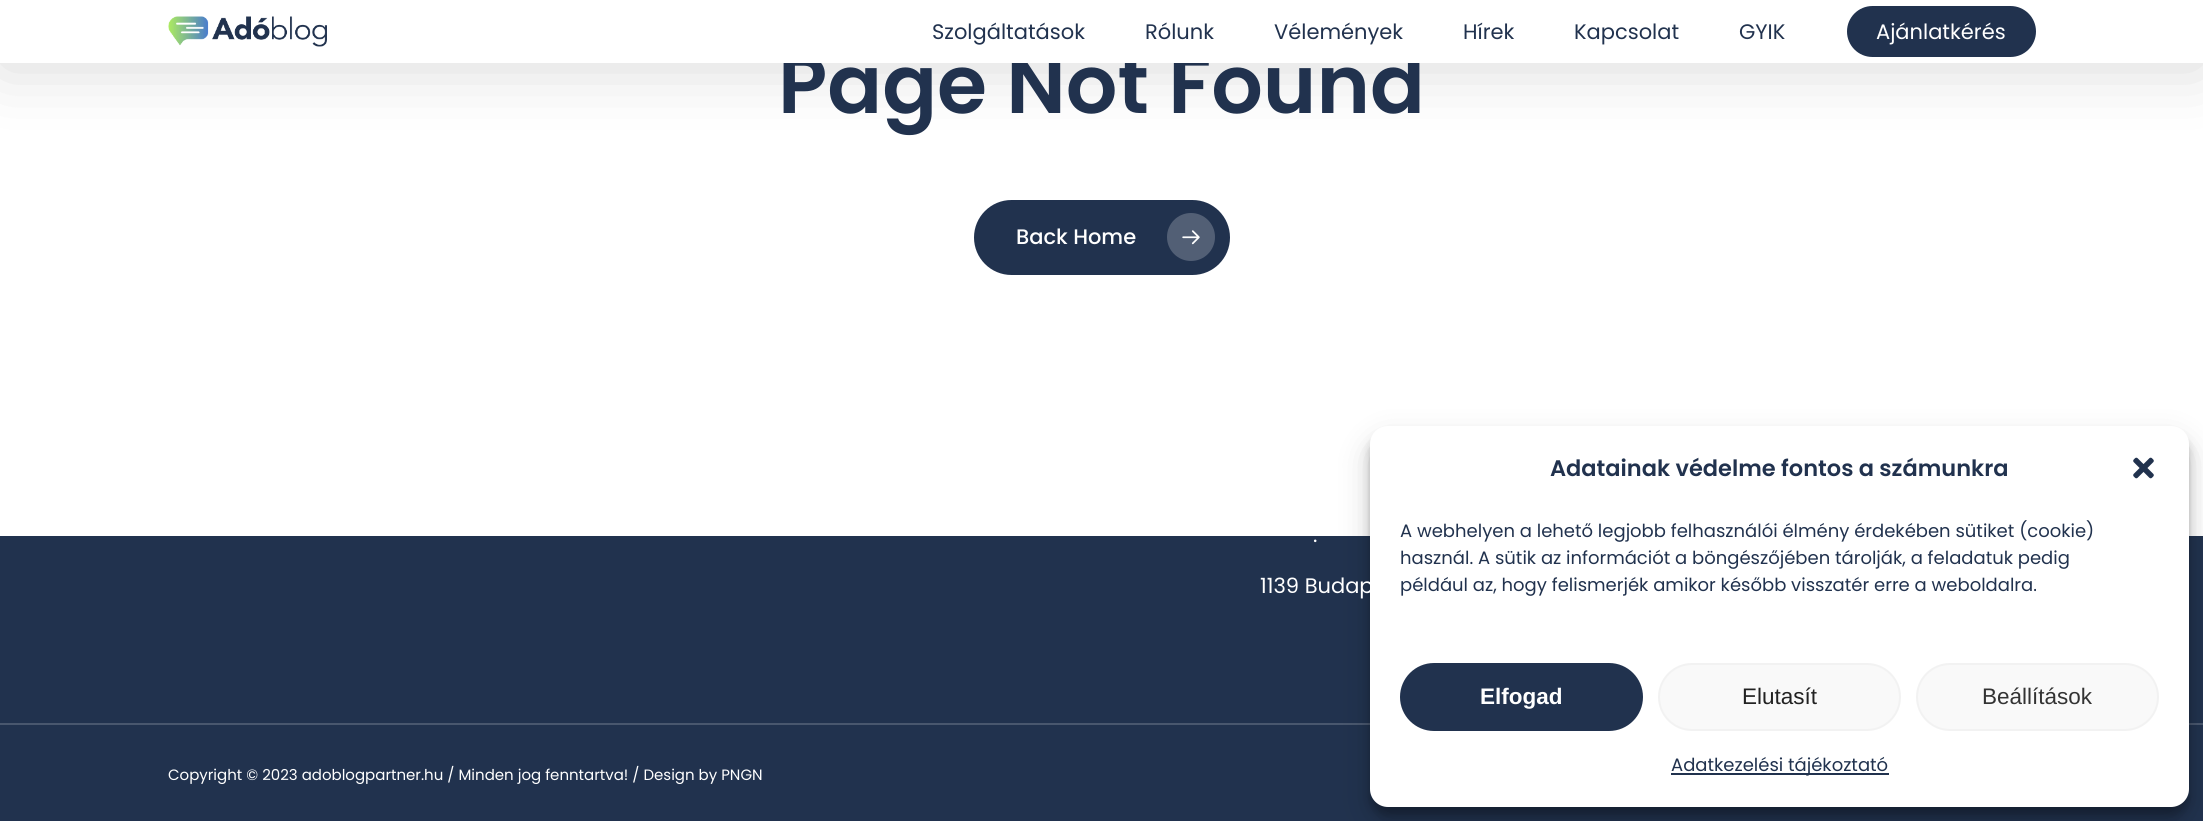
#include <cairo/cairo.h>
#include <math.h>
#include <stddef.h>

typedef struct { double x, y; const char *s; } line_t;
static cairo_t *cr;

static void rgb(unsigned color)
{
	cairo_set_source_rgb(cr, (color >> 16) / 255.0, (color >> 8 & 255) / 255.0, (color & 255) / 255.0);
}

static void rrect(double x, double y, double w, double h, double r)
{
	cairo_new_sub_path(cr);
	cairo_arc(cr, x + w - r, y + h - r, r, 0, M_PI / 2);
	cairo_arc(cr, x + r, y + h - r, r, M_PI / 2, M_PI);
	cairo_arc(cr, x + r, y + r, r, M_PI, 1.5 * M_PI);
	cairo_arc(cr, x + w - r, y + r, r, 1.5 * M_PI, 2 * M_PI);
	cairo_close_path(cr);
}

static void soft_shadow(double x, double y, double w, double h, double r, double blur, double alpha)
{
	cairo_push_group_with_content(cr, CAIRO_CONTENT_ALPHA);
	cairo_set_operator(cr, CAIRO_OPERATOR_SOURCE);
	for (int i = 15; i >= -15 && fmin(w, h) + blur * i / 3 > 0; i -= 2) {
		double e = blur * i / 6;
		cairo_set_source_rgba(cr, 0, 0, 0, alpha * erfc((i - 1) / 8.5) / 2);
		rrect(x - e, y - e, w + 2 * e, h + 2 * e, fmax(0, fmin(r + e + blur * .6, fmin(w, h) / 2 + e)));
		cairo_fill(cr);
	}
	cairo_pattern_t *soft = cairo_pop_group(cr);
	cairo_mask(cr, soft);
	cairo_pattern_destroy(soft);
}

static void image(const char *path, double x, double y, double w, double h)
{
	cairo_surface_t *image = cairo_image_surface_create_from_png(path);
	cairo_save(cr);
	cairo_set_source_surface(cr, image, x, y);
	cairo_rectangle(cr, x, y, w, h);
	cairo_fill(cr);
	cairo_restore(cr);
	cairo_surface_destroy(image);
}

int main(void) {
	cairo_surface_t *surface = cairo_image_surface_create(CAIRO_FORMAT_RGB24, 2203, 821);
	cr = cairo_create(surface);
	cairo_font_options_t *options = cairo_font_options_create();
	cairo_font_options_set_hint_metrics(options, CAIRO_HINT_METRICS_OFF);
	cairo_font_options_set_hint_style(options, CAIRO_HINT_STYLE_NONE);
	cairo_set_font_options(cr, options);
	cairo_set_miter_limit(cr, 4);
	rgb(0x21324e);
	cairo_paint(cr);
	rgb(0xffffff);
	cairo_rectangle(cr, 0, 63, 2203, 473);
	cairo_fill(cr);
	rgb(0x000000);
	soft_shadow(0, 5, 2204, 63, 0, 34, 0.15);
	rgb(0x21324e);
	rrect(974, 200, 256, 75, 37.5);
	cairo_fill(cr);
	rgb(0x525f75);
	cairo_arc(cr, 1191, 237, 24, 0, 2 * M_PI);
	cairo_fill(cr);
	image("img/2.png", 1182, 230, 18, 15);
	rgb(0x49576e);
	cairo_rectangle(cr, 0, 723, 2203, 2);
	cairo_fill(cr);
	rgb(0x000000);
	soft_shadow(1370, 435, 819, 381, 18, 4.5, 0.23);
	soft_shadow(1370, 441, 819, 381, 18, 15, 0.19);
	rgb(0xffffff);
	rrect(1370, 426, 819, 381, 18);
	cairo_fill(cr);
	image("img/3.png", 2133, 457, 21, 22);
	rgb(0x21324e);
	rrect(1401, 664, 241, 66, 33);
	cairo_fill_preserve(cr);
	cairo_stroke(cr);
	rgb(0xf9f9f9);
	rrect(1659, 664, 241, 66, 33);
	cairo_fill_preserve(cr);
	rgb(0xf2f2f2);
	cairo_stroke(cr);
	rgb(0xf9f9f9);
	rrect(1917, 664, 241, 66, 33);
	cairo_fill_preserve(cr);
	rgb(0xf2f2f2);
	cairo_stroke(cr);
	rgb(0x21324e);
	cairo_rectangle(cr, 1671, 773, 218, 2);
	cairo_fill(cr);
	cairo_select_font_face(cr, "Poppins SemiBold", CAIRO_FONT_SLANT_NORMAL, CAIRO_FONT_WEIGHT_NORMAL);
	cairo_set_font_size(cr, 81);
	cairo_move_to(cr, 778, 113);
	cairo_show_text(cr, "Page Not Found");
	rgb(0xffffff);
	cairo_rectangle(cr, 0, 0, 2203, 63);
	cairo_fill(cr);
	rgb(0x21324e);
	rrect(1847, 6, 189, 51, 25.5);
	cairo_fill(cr);
	cairo_select_font_face(cr, "Poppins", CAIRO_FONT_SLANT_NORMAL, CAIRO_FONT_WEIGHT_NORMAL);
	cairo_set_font_size(cr, 21);
	rgb(0xffffff);
	cairo_move_to(cr, 1876, 39);
	cairo_show_text(cr, "Ajánlatkérés");
	rgb(0x21324e);
	{
		static const line_t items[] = {
			{1739, 39, "GYIK"},
			{1574, 39, "Kapcsolat"},
			{1463, 39, "Hírek"},
			{1274, 39, "Vélemények"},
			{1145, 39, "Rólunk"},
			{932, 39, "Szolgáltatások"},
		};
		for (size_t i = 0; i < sizeof items / sizeof *items; i++) {
			cairo_move_to(cr, items[i].x, items[i].y);
			cairo_show_text(cr, items[i].s);
		}
	}
	image("img/1.png", 168, 16, 159, 31);
	cairo_select_font_face(cr, "Poppins Medium", CAIRO_FONT_SLANT_NORMAL, CAIRO_FONT_WEIGHT_NORMAL);
	rgb(0xffffff);
	cairo_move_to(cr, 1016, 244);
	cairo_show_text(cr, "Back Home");
	cairo_select_font_face(cr, "Poppins", CAIRO_FONT_SLANT_NORMAL, CAIRO_FONT_WEIGHT_NORMAL);
	cairo_move_to(cr, 1313, 542);
	cairo_show_text(cr, ".");
	cairo_move_to(cr, 1260, 593);
	cairo_show_text(cr, "1139 Budap");
	cairo_set_font_size(cr, 15);
	cairo_move_to(cr, 168, 780);
	cairo_show_text(cr, "Copyright © 2023 adoblogpartner.hu / Minden jog fenntartva! / Design by PNGN");
	cairo_select_font_face(cr, "Poppins SemiBold", CAIRO_FONT_SLANT_NORMAL, CAIRO_FONT_WEIGHT_NORMAL);
	cairo_set_font_size(cr, 22.5);
	rgb(0x21324e);
	cairo_move_to(cr, 1550, 476);
	cairo_show_text(cr, "Adatainak védelme fontos a számunkra");
	cairo_select_font_face(cr, "Poppins", CAIRO_FONT_SLANT_NORMAL, CAIRO_FONT_WEIGHT_NORMAL);
	cairo_set_font_size(cr, 18);
	{
		static const line_t items[] = {
			{1400, 537, "A webhelyen a lehető legjobb felhasználói élmény érdekében sütiket (cookie)"},
			{1400, 564, "használ. A sütik az információt a böngészőjében tárolják, a feladatuk pedig"},
			{1400, 591, "például az, hogy felismerjék amikor később visszatér erre a weboldalra."},
		};
		for (size_t i = 0; i < sizeof items / sizeof *items; i++) {
			cairo_move_to(cr, items[i].x, items[i].y);
			cairo_show_text(cr, items[i].s);
		}
	}
	cairo_select_font_face(cr, "Liberation Sans", CAIRO_FONT_SLANT_NORMAL, CAIRO_FONT_WEIGHT_BOLD);
	cairo_set_font_size(cr, 22.5);
	rgb(0xffffff);
	cairo_move_to(cr, 1480, 704);
	cairo_show_text(cr, "Elfogad");
	cairo_select_font_face(cr, "Liberation Sans", CAIRO_FONT_SLANT_NORMAL, CAIRO_FONT_WEIGHT_NORMAL);
	rgb(0x222222);
	cairo_move_to(cr, 1742, 704);
	cairo_show_text(cr, "Elutasít");
	rgb(0x333333);
	cairo_move_to(cr, 1982, 704);
	cairo_show_text(cr, "Beállítások");
	cairo_select_font_face(cr, "Poppins", CAIRO_FONT_SLANT_NORMAL, CAIRO_FONT_WEIGHT_NORMAL);
	cairo_set_font_size(cr, 18);
	rgb(0x21324e);
	cairo_move_to(cr, 1671, 771);
	cairo_show_text(cr, "Adatkezelési tájékoztató");
	cairo_surface_write_to_png(surface, "page.png");
	cairo_font_options_destroy(options);
	cairo_destroy(cr);
	cairo_surface_destroy(surface);
	return 0;
}
